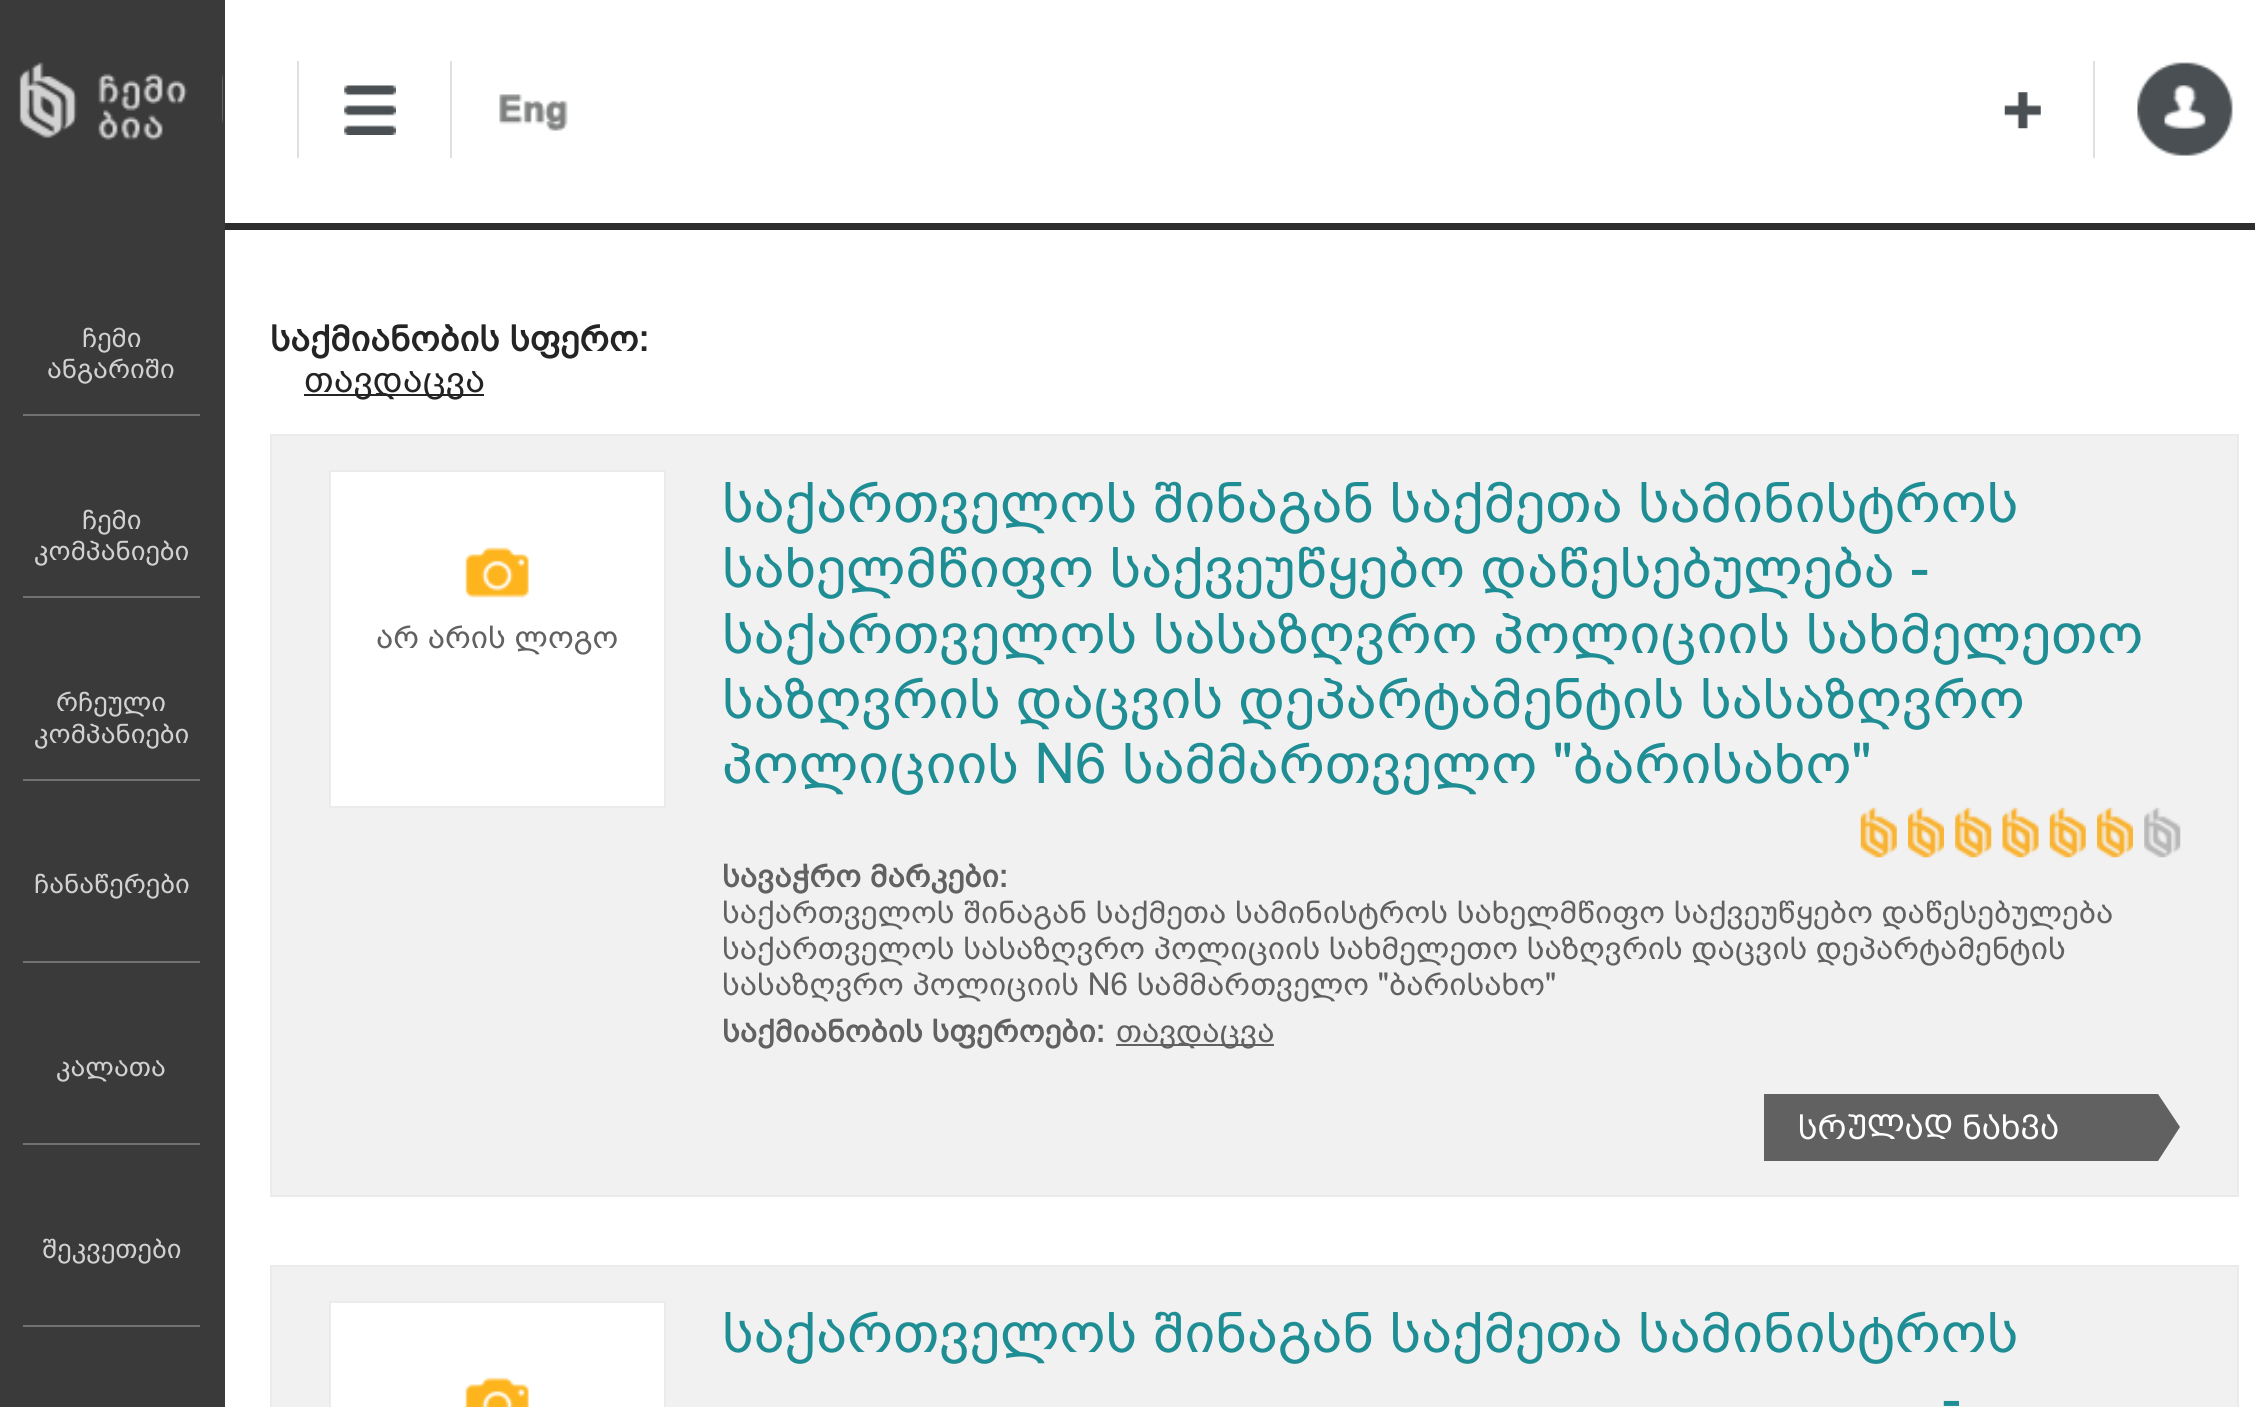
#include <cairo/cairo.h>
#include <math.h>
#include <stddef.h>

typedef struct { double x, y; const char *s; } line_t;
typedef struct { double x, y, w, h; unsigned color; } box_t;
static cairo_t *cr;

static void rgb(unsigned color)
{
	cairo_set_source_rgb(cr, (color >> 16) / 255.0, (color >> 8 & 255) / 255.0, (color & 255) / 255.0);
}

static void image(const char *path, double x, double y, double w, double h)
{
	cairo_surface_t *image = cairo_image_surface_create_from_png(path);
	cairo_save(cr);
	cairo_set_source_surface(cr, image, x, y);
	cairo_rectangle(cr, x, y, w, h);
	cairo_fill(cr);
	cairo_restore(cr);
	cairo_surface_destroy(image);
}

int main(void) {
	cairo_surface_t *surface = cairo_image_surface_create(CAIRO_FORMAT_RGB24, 2255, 1407);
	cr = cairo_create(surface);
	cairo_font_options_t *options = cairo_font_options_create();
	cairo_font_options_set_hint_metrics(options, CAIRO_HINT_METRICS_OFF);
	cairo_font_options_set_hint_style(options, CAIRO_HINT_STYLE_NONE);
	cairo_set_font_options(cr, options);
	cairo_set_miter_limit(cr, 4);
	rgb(0xffffff);
	cairo_paint(cr);
	{
		static const box_t items[] = {
			{225, 223, 2030, 7, 0x2d2d2d},
			{297, 61, 2, 97, 0xe0e0e0},
			{450, 61, 2, 97, 0xe0e0e0},
		};
		for (size_t i = 0; i < sizeof items / sizeof *items; i++) {
			rgb(items[i].color);
			cairo_rectangle(cr, items[i].x, items[i].y, items[i].w, items[i].h);
			cairo_fill(cr);
		}
	}
	image("img/1.png", 344, 85, 52, 50);
	image("img/2.png", 499, 94, 69, 37);
	cairo_rectangle(cr, 2093, 61, 2, 97);
	cairo_fill(cr);
	image("img/3.png", 2004, 92, 37, 37);
	image("img/4.png", 2137, 62, 96, 94);
	rgb(0x3a3a3a);
	cairo_rectangle(cr, 0, 0, 225, 1407);
	cairo_fill(cr);
	image("img/5.png", 19, 62, 204, 79);
	{
		static const box_t items[] = {
			{23, 414, 177, 2, 0x717171},
			{23, 596, 177, 2, 0x717171},
			{23, 779, 177, 2, 0x717171},
			{23, 961, 177, 2, 0x717171},
			{23, 1143, 177, 2, 0x717171},
			{23, 1325, 177, 2, 0x717171},
			{304, 394, 180, 2, 0x242424},
		};
		for (size_t i = 0; i < sizeof items / sizeof *items; i++) {
			rgb(items[i].color);
			cairo_rectangle(cr, items[i].x, items[i].y, items[i].w, items[i].h);
			cairo_fill(cr);
		}
	}
	rgb(0xf1f1f1);
	cairo_rectangle(cr, 271, 435, 1967, 761);
	cairo_fill_preserve(cr);
	rgb(0xebebeb);
	cairo_stroke(cr);
	rgb(0xffffff);
	cairo_rectangle(cr, 331, 472, 333, 334);
	cairo_fill(cr);
	image("img/6.png", 465, 547, 64, 51);
	cairo_rectangle(cr, 330, 471, 335, 336);
	rgb(0xebebeb);
	cairo_stroke(cr);
	image("img/7.png", 1860, 807, 37, 51);
	image("img/8.png", 1908, 807, 36, 51);
	image("img/9.png", 1955, 807, 37, 51);
	image("img/10.png", 2002, 807, 37, 51);
	image("img/11.png", 2049, 807, 37, 51);
	image("img/8.png", 2097, 807, 36, 51);
	image("img/12.png", 2144, 807, 37, 51);
	rgb(0x616161);
	cairo_rectangle(cr, 1116, 1044, 158, 2);
	cairo_fill(cr);
	cairo_rectangle(cr, 1764, 1094, 394, 67);
	cairo_fill(cr);
	cairo_new_path(cr);
	cairo_move_to(cr, 2158, 1161);
	cairo_line_to(cr, 2158, 1094);
	cairo_line_to(cr, 2180, 1127);
	cairo_close_path(cr);
	cairo_fill(cr);
	rgb(0xf1f1f1);
	cairo_rectangle(cr, 271, 1266, 1967, 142);
	cairo_fill_preserve(cr);
	rgb(0xebebeb);
	cairo_stroke(cr);
	rgb(0xffffff);
	cairo_rectangle(cr, 331, 1303, 333, 104);
	cairo_fill(cr);
	image("img/13.png", 465, 1377, 64, 30);
	cairo_rectangle(cr, 330, 1302, 335, 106);
	rgb(0xebebeb);
	cairo_stroke(cr);
	cairo_select_font_face(cr, "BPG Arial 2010", CAIRO_FONT_SLANT_NORMAL, CAIRO_FONT_WEIGHT_NORMAL);
	cairo_set_font_size(cr, 27);
	rgb(0xd1d1d1);
	{
		static const line_t items[] = {
			{82, 347, "ჩემი"},
			{47, 378, "ანგარიში"},
			{82, 529, "ჩემი"},
			{34, 560, "კომპანიები"},
			{56, 711, "რჩეული"},
			{34, 743, "კომპანიები"},
			{34, 893, "ჩანაწერები"},
			{56, 1076, "კალათა"},
			{42, 1258, "შეკვეთები"},
		};
		for (size_t i = 0; i < sizeof items / sizeof *items; i++) {
			cairo_move_to(cr, items[i].x, items[i].y);
			cairo_show_text(cr, items[i].s);
		}
	}
	cairo_select_font_face(cr, "BPG Arial 2010", CAIRO_FONT_SLANT_NORMAL, CAIRO_FONT_WEIGHT_BOLD);
	cairo_set_font_size(cr, 36);
	rgb(0x242424);
	cairo_move_to(cr, 270, 351);
	cairo_show_text(cr, "საქმიანობის სფერო:");
	cairo_select_font_face(cr, "BPG Arial 2010", CAIRO_FONT_SLANT_NORMAL, CAIRO_FONT_WEIGHT_NORMAL);
	cairo_move_to(cr, 304, 392);
	cairo_show_text(cr, "თავდაცვა");
	cairo_set_font_size(cr, 31.5);
	rgb(0x616161);
	cairo_move_to(cr, 376, 648);
	cairo_show_text(cr, "არ არის ლოგო");
	cairo_set_font_size(cr, 56.25);
	rgb(0x1e8d94);
	{
		static const line_t items[] = {
			{722, 522, "საქართველოს შინაგან საქმეთა სამინისტროს"},
			{722, 587, "სახელმწიფო საქვეუწყებო დაწესებულება -"},
			{722, 653, "საქართველოს სასაზღვრო პოლიციის სახმელეთო"},
			{722, 718, "საზღვრის დაცვის დეპარტამენტის სასაზღვრო"},
			{722, 783, "პოლიციის N6 სამმართველო \"ბარისახო\""},
		};
		for (size_t i = 0; i < sizeof items / sizeof *items; i++) {
			cairo_move_to(cr, items[i].x, items[i].y);
			cairo_show_text(cr, items[i].s);
		}
	}
	cairo_select_font_face(cr, "BPG Arial 2010", CAIRO_FONT_SLANT_NORMAL, CAIRO_FONT_WEIGHT_BOLD);
	cairo_set_font_size(cr, 31.5);
	rgb(0x616161);
	cairo_move_to(cr, 722, 887);
	cairo_show_text(cr, "სავაჭრო მარკები:");
	cairo_select_font_face(cr, "BPG Arial 2010", CAIRO_FONT_SLANT_NORMAL, CAIRO_FONT_WEIGHT_NORMAL);
	{
		static const line_t items[] = {
			{722, 923, "საქართველოს შინაგან საქმეთა სამინისტროს სახელმწიფო საქვეუწყებო დაწესებულება"},
			{722, 959, "საქართველოს სასაზღვრო პოლიციის სახმელეთო საზღვრის დაცვის დეპარტამენტის"},
			{722, 995, "სასაზღვრო პოლიციის N6 სამმართველო \"ბარისახო\""},
		};
		for (size_t i = 0; i < sizeof items / sizeof *items; i++) {
			cairo_move_to(cr, items[i].x, items[i].y);
			cairo_show_text(cr, items[i].s);
		}
	}
	cairo_select_font_face(cr, "BPG Arial 2010", CAIRO_FONT_SLANT_NORMAL, CAIRO_FONT_WEIGHT_BOLD);
	cairo_move_to(cr, 722, 1042);
	cairo_show_text(cr, "საქმიანობის სფეროები:");
	cairo_select_font_face(cr, "BPG Arial 2010", CAIRO_FONT_SLANT_NORMAL, CAIRO_FONT_WEIGHT_NORMAL);
	cairo_move_to(cr, 1116, 1042);
	cairo_show_text(cr, "თავდაცვა");
	cairo_select_font_face(cr, "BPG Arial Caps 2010", CAIRO_FONT_SLANT_NORMAL, CAIRO_FONT_WEIGHT_NORMAL);
	cairo_set_font_size(cr, 33.75);
	rgb(0xffffff);
	cairo_move_to(cr, 1798, 1139);
	cairo_show_text(cr, "სრულად ნახვა");
	cairo_select_font_face(cr, "BPG Arial 2010", CAIRO_FONT_SLANT_NORMAL, CAIRO_FONT_WEIGHT_NORMAL);
	cairo_set_font_size(cr, 56.25);
	rgb(0x1e8d94);
	cairo_move_to(cr, 722, 1352);
	cairo_show_text(cr, "საქართველოს შინაგან საქმეთა სამინისტროს");
	cairo_move_to(cr, 1942, 1418);
	cairo_show_text(cr, "-");
	cairo_surface_write_to_png(surface, "page.png");
	cairo_font_options_destroy(options);
	cairo_destroy(cr);
	cairo_surface_destroy(surface);
	return 0;
}
